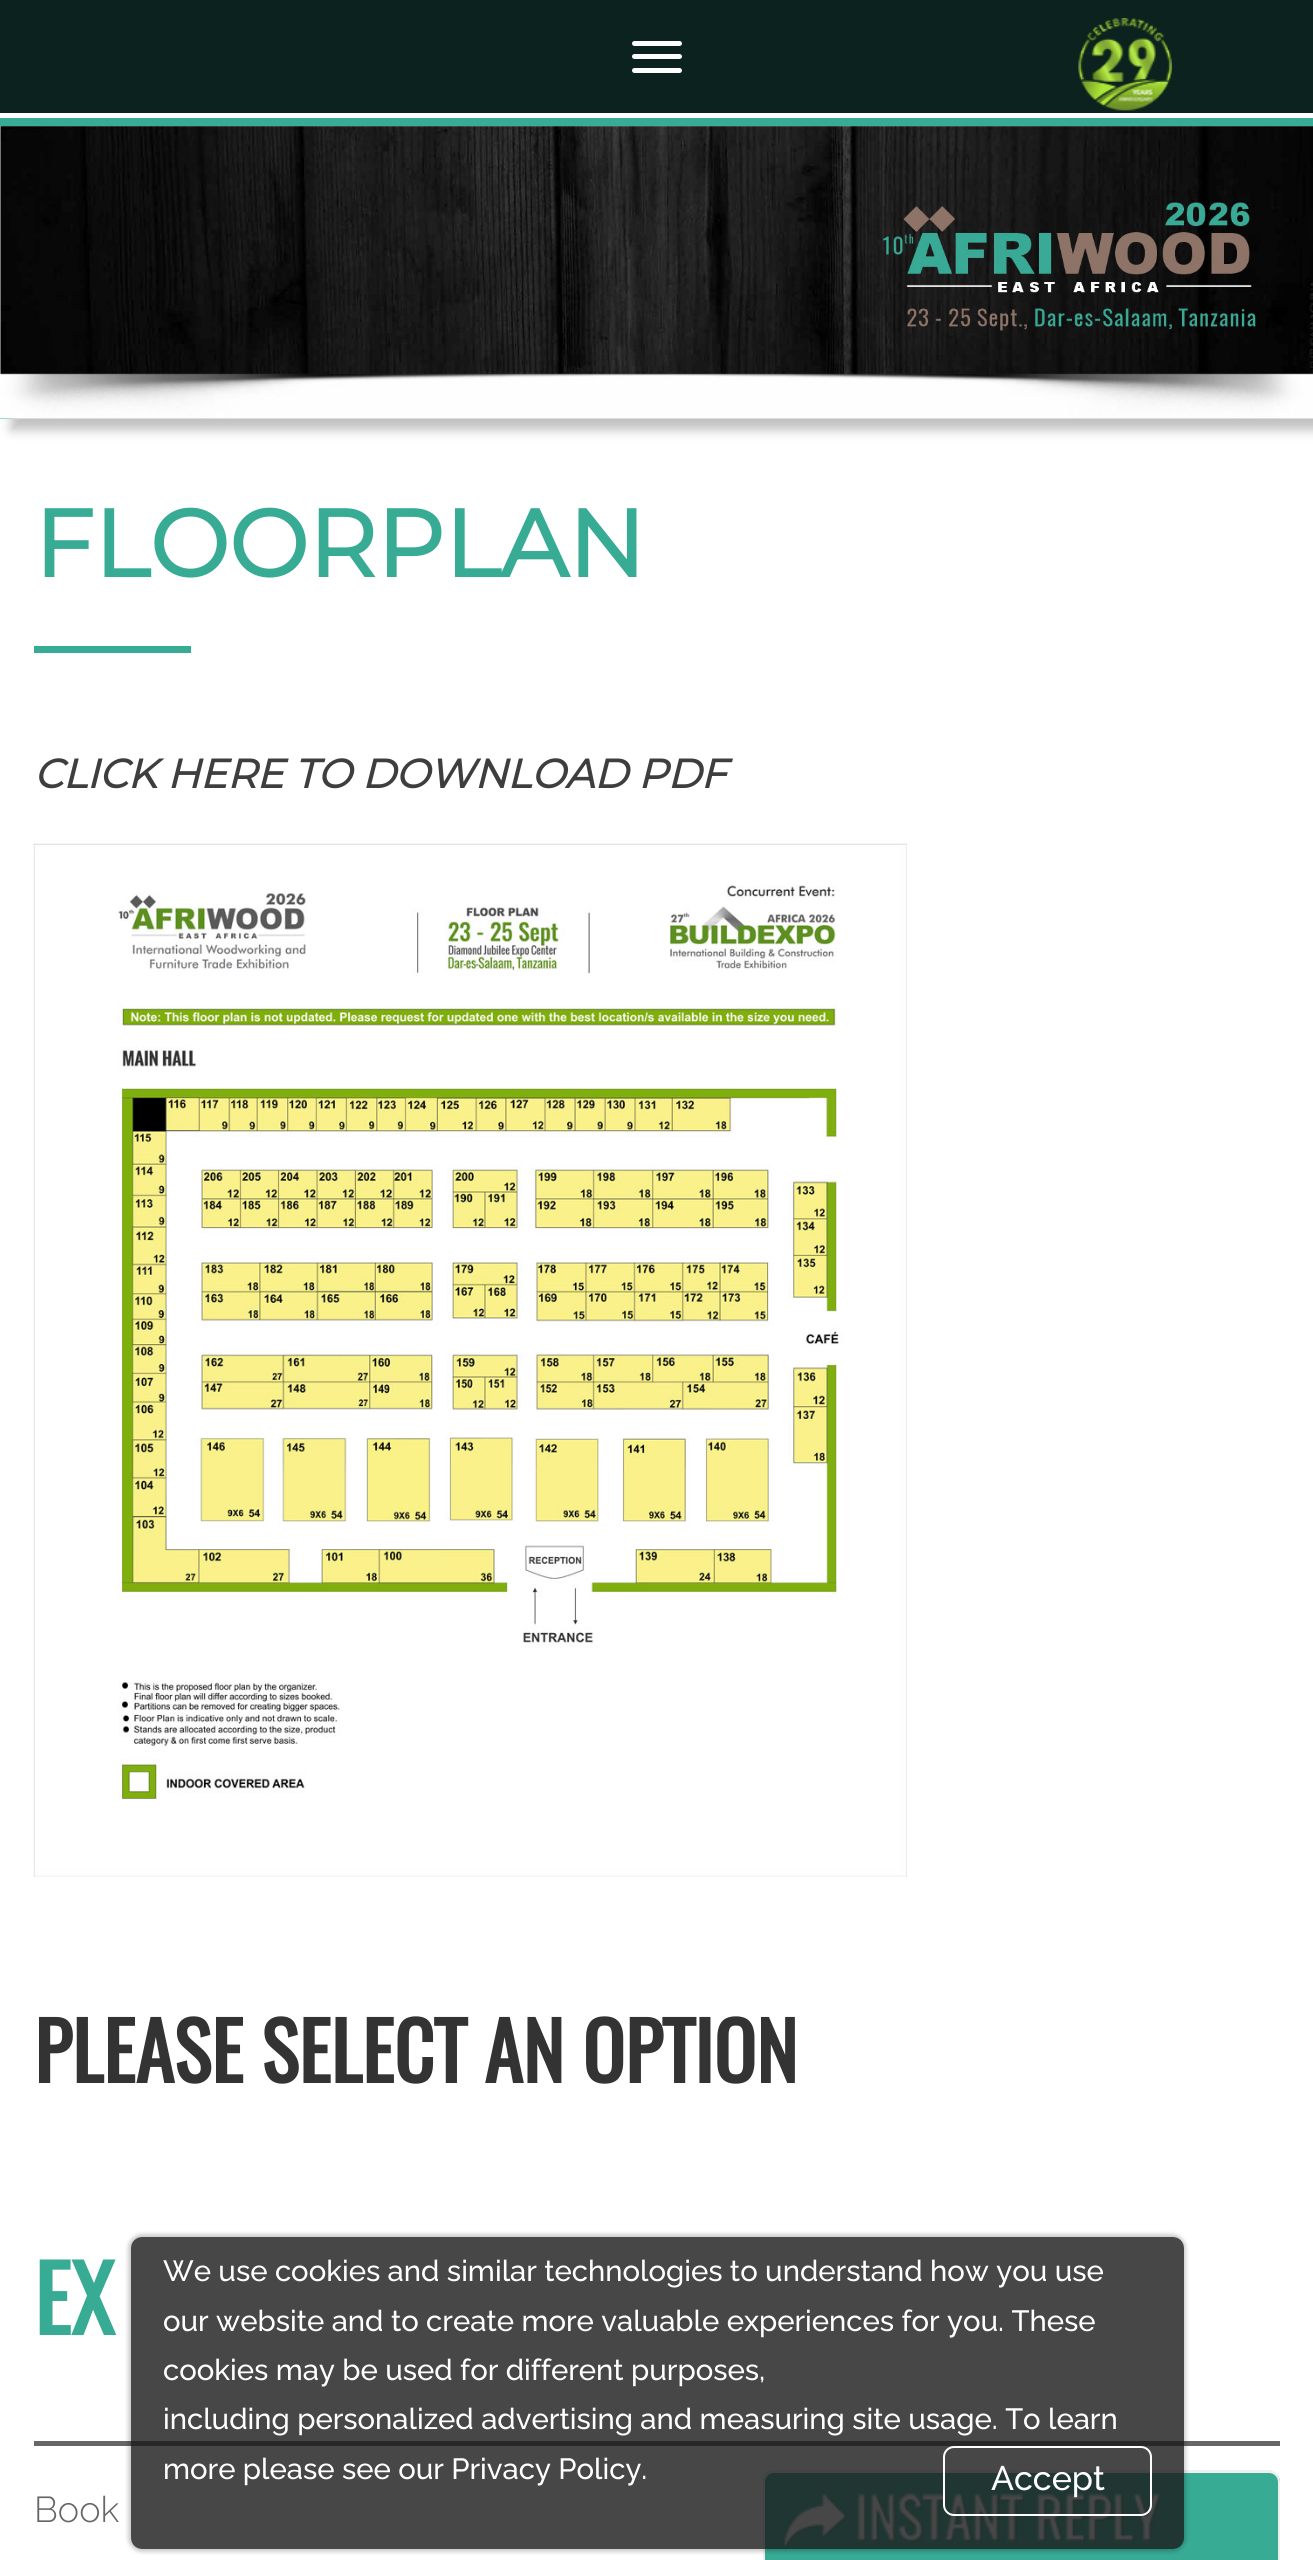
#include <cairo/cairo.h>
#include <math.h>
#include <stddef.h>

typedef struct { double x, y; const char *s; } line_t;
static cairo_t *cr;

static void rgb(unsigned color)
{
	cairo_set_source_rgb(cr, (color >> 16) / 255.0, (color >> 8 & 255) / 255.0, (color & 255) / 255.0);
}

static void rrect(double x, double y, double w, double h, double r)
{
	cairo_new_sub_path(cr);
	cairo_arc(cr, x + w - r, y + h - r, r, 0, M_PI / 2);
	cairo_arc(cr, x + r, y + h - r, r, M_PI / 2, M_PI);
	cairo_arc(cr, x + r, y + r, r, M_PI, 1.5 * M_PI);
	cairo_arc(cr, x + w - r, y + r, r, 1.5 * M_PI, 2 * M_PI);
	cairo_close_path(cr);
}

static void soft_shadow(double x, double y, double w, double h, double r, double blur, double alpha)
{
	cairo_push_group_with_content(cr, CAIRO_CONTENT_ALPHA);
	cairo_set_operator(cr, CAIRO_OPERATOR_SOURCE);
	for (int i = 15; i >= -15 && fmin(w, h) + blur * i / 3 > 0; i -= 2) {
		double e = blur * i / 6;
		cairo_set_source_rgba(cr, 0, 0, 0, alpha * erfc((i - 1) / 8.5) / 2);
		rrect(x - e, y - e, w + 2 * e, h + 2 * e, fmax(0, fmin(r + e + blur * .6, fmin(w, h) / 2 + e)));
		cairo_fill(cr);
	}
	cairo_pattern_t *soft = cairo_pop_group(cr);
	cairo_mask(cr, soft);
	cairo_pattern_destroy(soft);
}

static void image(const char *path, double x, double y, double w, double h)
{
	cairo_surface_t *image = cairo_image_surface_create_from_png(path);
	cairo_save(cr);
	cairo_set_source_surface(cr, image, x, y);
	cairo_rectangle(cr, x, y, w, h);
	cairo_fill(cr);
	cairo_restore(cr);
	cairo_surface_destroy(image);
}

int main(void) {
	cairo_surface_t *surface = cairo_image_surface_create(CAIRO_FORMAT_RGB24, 1313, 2560);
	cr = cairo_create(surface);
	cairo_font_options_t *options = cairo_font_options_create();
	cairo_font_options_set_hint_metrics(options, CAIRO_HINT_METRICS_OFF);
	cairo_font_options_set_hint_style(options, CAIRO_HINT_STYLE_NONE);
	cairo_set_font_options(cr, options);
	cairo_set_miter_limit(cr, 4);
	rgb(0x37ab94);
	cairo_paint(cr);
	rgb(0x0b221e);
	cairo_rectangle(cr, 0, 0, 1313, 113);
	cairo_fill(cr);
	rgb(0xffffff);
	cairo_rectangle(cr, 0, 113, 1313, 5);
	cairo_fill(cr);
	rrect(632, 41, 50, 5, 2.5);
	cairo_fill(cr);
	rrect(632, 54, 50, 5, 2.5);
	cairo_fill(cr);
	rrect(632, 68, 50, 5, 2.5);
	cairo_fill(cr);
	image("img/1.png", 1078, 18, 95, 93);
	cairo_rectangle(cr, 0, 419, 1313, 2141);
	cairo_fill(cr);
	rgb(0xc0c0c0);
	soft_shadow(11, 137, 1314, 293, 0, 5.5, 1);
	image("img/2.png", 0, 126, 1313, 293);
	rgb(0x37ab94);
	cairo_rectangle(cr, 34, 646, 157, 7);
	cairo_fill(cr);
	image("img/3.png", 33, 843, 874, 1034);
	rgb(0x666666);
	cairo_rectangle(cr, 34, 2441, 1246, 5);
	cairo_fill(cr);
	rgb(0x37ab94);
	cairo_new_path(cr);
	cairo_move_to(cr, 774, 2471);
	cairo_line_to(cr, 1269, 2471);
	cairo_curve_to(cr, 1275, 2471, 1280, 2476, 1280, 2482);
	cairo_line_to(cr, 1280, 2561);
	cairo_line_to(cr, 763, 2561);
	cairo_line_to(cr, 763, 2482);
	cairo_curve_to(cr, 763, 2476, 768, 2471, 774, 2471);
	cairo_close_path(cr);
	cairo_fill(cr);
	rgb(0xefefef);
	cairo_set_fill_rule(cr, CAIRO_FILL_RULE_EVEN_ODD);
	cairo_new_path(cr);
	cairo_move_to(cr, 774, 2470);
	cairo_line_to(cr, 1269, 2470);
	cairo_curve_to(cr, 1275, 2470, 1280, 2476, 1280, 2482);
	cairo_line_to(cr, 1280, 2560);
	cairo_line_to(cr, 763, 2560);
	cairo_line_to(cr, 763, 2482);
	cairo_curve_to(cr, 763, 2476, 768, 2470, 774, 2470);
	cairo_close_path(cr);
	cairo_move_to(cr, 774, 2473);
	cairo_line_to(cr, 1269, 2473);
	cairo_curve_to(cr, 1274, 2473, 1278, 2477, 1278, 2482);
	cairo_line_to(cr, 1278, 2560);
	cairo_line_to(cr, 765, 2560);
	cairo_line_to(cr, 765, 2482);
	cairo_curve_to(cr, 765, 2477, 769, 2473, 774, 2473);
	cairo_close_path(cr);
	cairo_fill(cr);
	image("img/4.png", 784, 2493, 378, 58);
	cairo_save(cr);
	cairo_new_path(cr);
	cairo_move_to(cr, 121, 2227);
	cairo_line_to(cr, 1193, 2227);
	cairo_line_to(cr, 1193, 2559);
	cairo_line_to(cr, 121, 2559);
	cairo_close_path(cr);
	cairo_move_to(cr, 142, 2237);
	cairo_line_to(cr, 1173, 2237);
	cairo_curve_to(cr, 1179, 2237, 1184, 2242, 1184, 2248);
	cairo_line_to(cr, 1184, 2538);
	cairo_curve_to(cr, 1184, 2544, 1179, 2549, 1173, 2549);
	cairo_line_to(cr, 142, 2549);
	cairo_curve_to(cr, 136, 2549, 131, 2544, 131, 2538);
	cairo_line_to(cr, 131, 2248);
	cairo_curve_to(cr, 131, 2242, 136, 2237, 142, 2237);
	cairo_close_path(cr);
	cairo_clip(cr);
	rgb(0x000000);
	soft_shadow(128, 2234, 1058, 318, 14, 2, 0.2);
	cairo_restore(cr);
	cairo_set_source_rgba(cr, 0.098, 0.098, 0.098, 0.8);
	rrect(131, 2237, 1053, 312, 11);
	cairo_fill(cr);
	rrect(944, 2447, 207, 68, 10);
	rgb(0xffffff);
	cairo_stroke(cr);
	cairo_select_font_face(cr, "Montserrat", CAIRO_FONT_SLANT_NORMAL, CAIRO_FONT_WEIGHT_BOLD);
	cairo_set_font_size(cr, 94.5);
	rgb(0x37ab94);
	cairo_move_to(cr, 34, 577);
	cairo_show_text(cr, "FLOORPLAN");
	cairo_select_font_face(cr, "Montserrat", CAIRO_FONT_SLANT_ITALIC, CAIRO_FONT_WEIGHT_BOLD);
	cairo_set_font_size(cr, 40.5);
	rgb(0x3e3e3e);
	cairo_move_to(cr, 34, 788);
	cairo_show_text(cr, "CLICK HERE TO DOWNLOAD PDF");
	cairo_select_font_face(cr, "Oswald", CAIRO_FONT_SLANT_NORMAL, CAIRO_FONT_WEIGHT_BOLD);
	cairo_set_font_size(cr, 78.75);
	rgb(0x333333);
	cairo_move_to(cr, 34, 2083);
	cairo_show_text(cr, "PLEASE SELECT AN OPTION");
	cairo_set_font_size(cr, 90);
	rgb(0x37ab94);
	cairo_move_to(cr, 34, 2335);
	cairo_show_text(cr, "EX");
	cairo_select_font_face(cr, "Raleway Light", CAIRO_FONT_SLANT_NORMAL, CAIRO_FONT_WEIGHT_NORMAL);
	cairo_set_font_size(cr, 36);
	rgb(0x666666);
	cairo_move_to(cr, 34, 2522);
	cairo_show_text(cr, "Book");
	cairo_select_font_face(cr, "Raleway Medium", CAIRO_FONT_SLANT_NORMAL, CAIRO_FONT_WEIGHT_NORMAL);
	cairo_set_font_size(cr, 29.25);
	rgb(0xffffff);
	{
		static const line_t items[] = {
			{163, 2281, "We use cookies and similar technologies to understand how you use"},
			{163, 2331, "our website and to create more valuable experiences for you. These"},
			{163, 2380, "cookies may be used for different purposes,"},
			{163, 2429, "including personalized advertising and measuring site usage. To learn"},
			{163, 2479, "more please see our Privacy Policy."},
		};
		for (size_t i = 0; i < sizeof items / sizeof *items; i++) {
			cairo_move_to(cr, items[i].x, items[i].y);
			cairo_show_text(cr, items[i].s);
		}
	}
	cairo_set_font_size(cr, 34);
	cairo_move_to(cr, 991, 2490);
	cairo_show_text(cr, "Accept");
	cairo_surface_write_to_png(surface, "page.png");
	cairo_font_options_destroy(options);
	cairo_destroy(cr);
	cairo_surface_destroy(surface);
	return 0;
}
